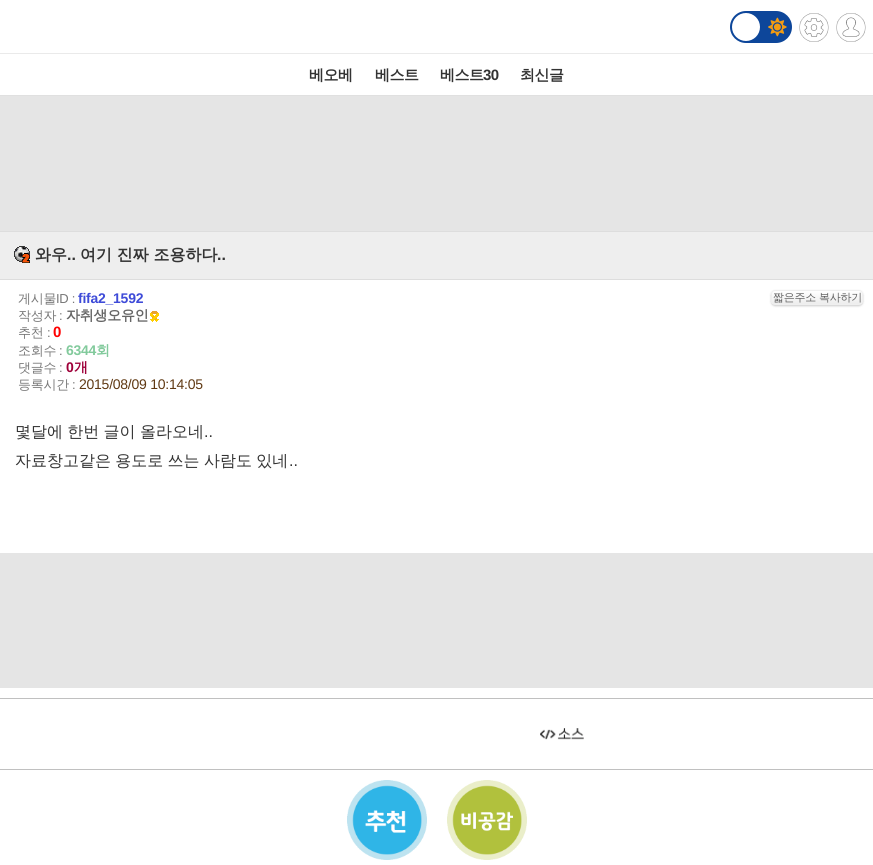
#include <cairo/cairo.h>
#include <math.h>
#include <stddef.h>

typedef struct { double x, y; const char *s; } line_t;
typedef struct { double x, y, w, h; unsigned color; } box_t;
static cairo_t *cr;

static void rgb(unsigned color)
{
	cairo_set_source_rgb(cr, (color >> 16) / 255.0, (color >> 8 & 255) / 255.0, (color & 255) / 255.0);
}

static void tracked(double x, double y, const char *s, double letter, double word)
{
	cairo_move_to(cr, x, y);
	while (*s) {
		char ch[5] = {0};
		int n = 0;
		do ch[n++] = *s++; while ((*s & 0xC0) == 0x80);
		cairo_show_text(cr, ch);
		cairo_rel_move_to(cr, letter + word * (*ch == ' '), 0);
	}
}

static void rrect(double x, double y, double w, double h, double r)
{
	cairo_new_sub_path(cr);
	cairo_arc(cr, x + w - r, y + h - r, r, 0, M_PI / 2);
	cairo_arc(cr, x + r, y + h - r, r, M_PI / 2, M_PI);
	cairo_arc(cr, x + r, y + r, r, M_PI, 1.5 * M_PI);
	cairo_arc(cr, x + w - r, y + r, r, 1.5 * M_PI, 2 * M_PI);
	cairo_close_path(cr);
}

static void soft_shadow(double x, double y, double w, double h, double r, double blur, double alpha)
{
	cairo_push_group_with_content(cr, CAIRO_CONTENT_ALPHA);
	cairo_set_operator(cr, CAIRO_OPERATOR_SOURCE);
	for (int i = 15; i >= -15 && fmin(w, h) + blur * i / 3 > 0; i -= 2) {
		double e = blur * i / 6;
		cairo_set_source_rgba(cr, 0, 0, 0, alpha * erfc((i - 1) / 8.5) / 2);
		rrect(x - e, y - e, w + 2 * e, h + 2 * e, fmax(0, fmin(r + e + blur * .6, fmin(w, h) / 2 + e)));
		cairo_fill(cr);
	}
	cairo_pattern_t *soft = cairo_pop_group(cr);
	cairo_mask(cr, soft);
	cairo_pattern_destroy(soft);
}

static void image(const char *path, double x, double y, double w, double h)
{
	cairo_surface_t *image = cairo_image_surface_create_from_png(path);
	cairo_save(cr);
	cairo_set_source_surface(cr, image, x, y);
	cairo_rectangle(cr, x, y, w, h);
	cairo_fill(cr);
	cairo_restore(cr);
	cairo_surface_destroy(image);
}

int main(void) {
	cairo_surface_t *surface = cairo_image_surface_create(CAIRO_FORMAT_RGB24, 873, 865);
	cr = cairo_create(surface);
	cairo_font_options_t *options = cairo_font_options_create();
	cairo_font_options_set_hint_metrics(options, CAIRO_HINT_METRICS_OFF);
	cairo_font_options_set_hint_style(options, CAIRO_HINT_STYLE_NONE);
	cairo_set_font_options(cr, options);
	cairo_set_miter_limit(cr, 4);
	cairo_pattern_t *gradient;
	rgb(0xffffff);
	cairo_paint(cr);
	rgb(0xeaeaea);
	cairo_rectangle(cr, 0, 53, 873, 1);
	cairo_fill(cr);
	rgb(0x0d469a);
	rrect(730, 11, 62, 32, 16);
	cairo_fill(cr);
	rgb(0xffffff);
	cairo_arc(cr, 746, 27, 14, 0, 2 * M_PI);
	cairo_fill(cr);
	image("img/1.png", 768, 17, 19, 20);
	image("img/2.png", 799, 13, 30, 29);
	image("img/3.png", 836, 13, 30, 29);
	{
		static const box_t items[] = {
			{0, 95, 873, 1, 0xe0e0e0},
			{0, 96, 873, 135, 0xe5e5e5},
			{0, 232, 873, 47, 0xeeeeee},
			{0, 231, 873, 1, 0xdddddd},
			{0, 279, 873, 1, 0xdddddd},
		};
		for (size_t i = 0; i < sizeof items / sizeof *items; i++) {
			rgb(items[i].color);
			cairo_rectangle(cr, items[i].x, items[i].y, items[i].w, items[i].h);
			cairo_fill(cr);
		}
	}
	image("img/4.png", 14, 246, 16, 17);
	rgb(0x000000);
	soft_shadow(771, 291, 92, 15, 4, 1, 0.2);
	cairo_save(cr);
	rrect(771, 290, 92, 15, 4);
	cairo_clip(cr);
	gradient = cairo_pattern_create_linear(772, 291, 772, 304);
	cairo_pattern_add_color_stop_rgba(gradient, 0, 1, 1, 1, 1);
	cairo_pattern_add_color_stop_rgba(gradient, 1, 0.929, 0.929, 0.929, 1);
	cairo_set_source(cr, gradient);
	cairo_pattern_destroy(gradient);
	cairo_rectangle(cr, 771, 291, 92, 13);
	cairo_fill(cr);
	cairo_restore(cr);
	rrect(771.5, 290.5, 91, 14, 3.5);
	rgb(0xefefef);
	cairo_set_line_width(cr, 1);
	cairo_stroke(cr);
	image("img/5.png", 150, 311, 9, 11);
	rgb(0xe5e5e5);
	cairo_rectangle(cr, 0, 553, 873, 135);
	cairo_fill(cr);
	rgb(0xc0c0c0);
	cairo_rectangle(cr, 0, 698, 873, 1);
	cairo_fill(cr);
	image("img/6.png", 540, 728, 44, 12);
	cairo_rectangle(cr, 0, 769, 873, 1);
	cairo_fill(cr);
	image("img/7.png", 347, 780, 80, 80);
	image("img/8.png", 447, 780, 80, 80);
	cairo_select_font_face(cr, "WenQuanYi Zen Hei", CAIRO_FONT_SLANT_NORMAL, CAIRO_FONT_WEIGHT_BOLD);
	cairo_set_font_size(cr, 15);
	rgb(0x333333);
	{
		static const line_t items[] = {
			{309, 80, "베오베"},
			{375, 80, "베스트"},
			{440, 80, "베스트"},
		};
		for (size_t i = 0; i < sizeof items / sizeof *items; i++) {
			tracked(items[i].x, items[i].y, items[i].s, -0.5, 0);
		}
	}
	cairo_select_font_face(cr, "Liberation Sans", CAIRO_FONT_SLANT_NORMAL, CAIRO_FONT_WEIGHT_BOLD);
	tracked(483, 80, "30", -0.5, 0);
	cairo_select_font_face(cr, "WenQuanYi Zen Hei", CAIRO_FONT_SLANT_NORMAL, CAIRO_FONT_WEIGHT_BOLD);
	tracked(520, 80, "최신글", -0.5, 0);
	cairo_set_font_size(cr, 16);
	cairo_move_to(cr, 35, 260);
	cairo_show_text(cr, "와우");
	cairo_select_font_face(cr, "Liberation Sans", CAIRO_FONT_SLANT_NORMAL, CAIRO_FONT_WEIGHT_BOLD);
	cairo_move_to(cr, 67, 260);
	cairo_show_text(cr, "..");
	cairo_select_font_face(cr, "WenQuanYi Zen Hei", CAIRO_FONT_SLANT_NORMAL, CAIRO_FONT_WEIGHT_BOLD);
	cairo_move_to(cr, 80, 260);
	cairo_show_text(cr, "여기 진짜 조용하다");
	cairo_select_font_face(cr, "Liberation Sans", CAIRO_FONT_SLANT_NORMAL, CAIRO_FONT_WEIGHT_BOLD);
	cairo_move_to(cr, 217, 260);
	cairo_show_text(cr, "..");
	cairo_select_font_face(cr, "WenQuanYi Zen Hei Medium", CAIRO_FONT_SLANT_NORMAL, CAIRO_FONT_WEIGHT_NORMAL);
	cairo_set_font_size(cr, 13);
	rgb(0x777777);
	tracked(18, 303, "게시물", -0.25, 0);
	cairo_select_font_face(cr, "Liberation Sans", CAIRO_FONT_SLANT_NORMAL, CAIRO_FONT_WEIGHT_NORMAL);
	tracked(56, 303, "ID :", -0.25, 0);
	cairo_select_font_face(cr, "Liberation Sans", CAIRO_FONT_SLANT_NORMAL, CAIRO_FONT_WEIGHT_BOLD);
	cairo_set_font_size(cr, 14);
	rgb(0x3e4bd8);
	tracked(78, 303, "fifa2_1592", -0.25, 0);
	cairo_select_font_face(cr, "WenQuanYi Zen Hei Medium", CAIRO_FONT_SLANT_NORMAL, CAIRO_FONT_WEIGHT_NORMAL);
	cairo_set_font_size(cr, 11);
	rgb(0x606060);
	tracked(773, 301, "짧은주소 복사하기", -0.25, 0);
	cairo_set_font_size(cr, 13);
	rgb(0x777777);
	tracked(18, 320, "작성자", -0.25, 0);
	cairo_select_font_face(cr, "Liberation Sans", CAIRO_FONT_SLANT_NORMAL, CAIRO_FONT_WEIGHT_NORMAL);
	tracked(59, 320, ":", -0.25, 0);
	cairo_select_font_face(cr, "WenQuanYi Zen Hei", CAIRO_FONT_SLANT_NORMAL, CAIRO_FONT_WEIGHT_BOLD);
	cairo_set_font_size(cr, 14);
	rgb(0x666666);
	tracked(66, 320, "자취생오유인", -0.25, 0);
	cairo_select_font_face(cr, "WenQuanYi Zen Hei Medium", CAIRO_FONT_SLANT_NORMAL, CAIRO_FONT_WEIGHT_NORMAL);
	cairo_set_font_size(cr, 13);
	rgb(0x777777);
	tracked(18, 337, "추천", -0.25, 0);
	cairo_select_font_face(cr, "Liberation Sans", CAIRO_FONT_SLANT_NORMAL, CAIRO_FONT_WEIGHT_NORMAL);
	tracked(47, 337, ":", -0.25, 0);
	cairo_select_font_face(cr, "Liberation Sans", CAIRO_FONT_SLANT_NORMAL, CAIRO_FONT_WEIGHT_BOLD);
	cairo_set_font_size(cr, 15);
	rgb(0xff0000);
	tracked(53, 337, "0", -0.25, 0);
	cairo_select_font_face(cr, "WenQuanYi Zen Hei Medium", CAIRO_FONT_SLANT_NORMAL, CAIRO_FONT_WEIGHT_NORMAL);
	cairo_set_font_size(cr, 13);
	rgb(0x777777);
	tracked(18, 355, "조회수", -0.25, 0);
	cairo_select_font_face(cr, "Liberation Sans", CAIRO_FONT_SLANT_NORMAL, CAIRO_FONT_WEIGHT_NORMAL);
	tracked(59, 355, ":", -0.25, 0);
	cairo_select_font_face(cr, "Liberation Sans", CAIRO_FONT_SLANT_NORMAL, CAIRO_FONT_WEIGHT_BOLD);
	cairo_set_font_size(cr, 14);
	rgb(0x82ca9c);
	tracked(66, 355, "6344", -0.25, 0);
	cairo_select_font_face(cr, "WenQuanYi Zen Hei", CAIRO_FONT_SLANT_NORMAL, CAIRO_FONT_WEIGHT_BOLD);
	tracked(96, 355, "회", -0.25, 0);
	cairo_select_font_face(cr, "WenQuanYi Zen Hei Medium", CAIRO_FONT_SLANT_NORMAL, CAIRO_FONT_WEIGHT_NORMAL);
	cairo_set_font_size(cr, 13);
	rgb(0x777777);
	tracked(18, 372, "댓글수", -0.25, 0);
	cairo_select_font_face(cr, "Liberation Sans", CAIRO_FONT_SLANT_NORMAL, CAIRO_FONT_WEIGHT_NORMAL);
	tracked(59, 372, ":", -0.25, 0);
	cairo_select_font_face(cr, "Liberation Sans", CAIRO_FONT_SLANT_NORMAL, CAIRO_FONT_WEIGHT_BOLD);
	cairo_set_font_size(cr, 14);
	rgb(0x9e0039);
	tracked(66, 372, "0", -0.25, 0);
	cairo_select_font_face(cr, "WenQuanYi Zen Hei", CAIRO_FONT_SLANT_NORMAL, CAIRO_FONT_WEIGHT_BOLD);
	tracked(74, 372, "개", -0.25, 0);
	cairo_select_font_face(cr, "WenQuanYi Zen Hei Medium", CAIRO_FONT_SLANT_NORMAL, CAIRO_FONT_WEIGHT_NORMAL);
	cairo_set_font_size(cr, 13);
	rgb(0x777777);
	tracked(18, 389, "등록시간", -0.25, 0);
	cairo_select_font_face(cr, "Liberation Sans", CAIRO_FONT_SLANT_NORMAL, CAIRO_FONT_WEIGHT_NORMAL);
	tracked(72, 389, ":", -0.25, 0);
	cairo_set_font_size(cr, 14);
	rgb(0x603913);
	tracked(79, 389, "2015/08/09 10:14:05", -0.25, 0);
	cairo_select_font_face(cr, "WenQuanYi Zen Hei Medium", CAIRO_FONT_SLANT_NORMAL, CAIRO_FONT_WEIGHT_NORMAL);
	cairo_set_font_size(cr, 16);
	rgb(0x333333);
	tracked(15, 437, "몇달에 한번 글이 올라오네", 0, -0.5);
	cairo_select_font_face(cr, "Liberation Sans", CAIRO_FONT_SLANT_NORMAL, CAIRO_FONT_WEIGHT_NORMAL);
	cairo_move_to(cr, 204, 437);
	cairo_show_text(cr, "..");
	cairo_select_font_face(cr, "WenQuanYi Zen Hei Medium", CAIRO_FONT_SLANT_NORMAL, CAIRO_FONT_WEIGHT_NORMAL);
	tracked(15, 466, "자료창고같은 용도로 쓰는 사람도 있네", 0, -0.5);
	cairo_select_font_face(cr, "Liberation Sans", CAIRO_FONT_SLANT_NORMAL, CAIRO_FONT_WEIGHT_NORMAL);
	cairo_move_to(cr, 289, 466);
	cairo_show_text(cr, "..");
	cairo_surface_write_to_png(surface, "page.png");
	cairo_font_options_destroy(options);
	cairo_destroy(cr);
	cairo_surface_destroy(surface);
	return 0;
}
